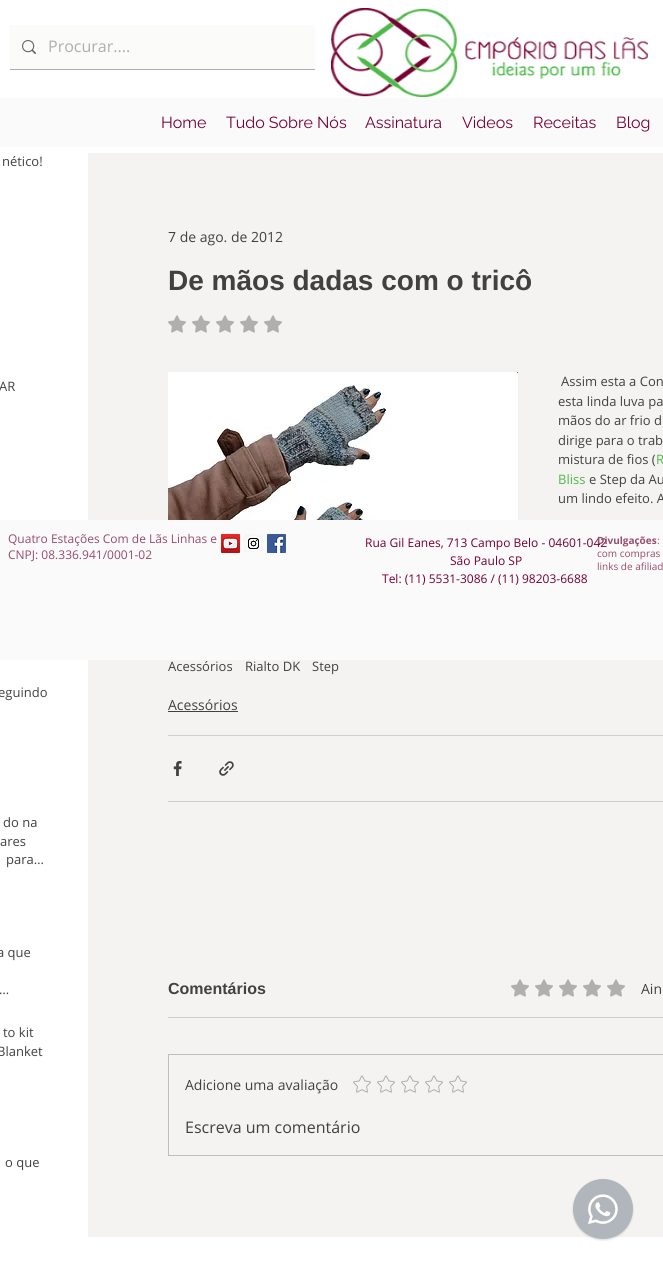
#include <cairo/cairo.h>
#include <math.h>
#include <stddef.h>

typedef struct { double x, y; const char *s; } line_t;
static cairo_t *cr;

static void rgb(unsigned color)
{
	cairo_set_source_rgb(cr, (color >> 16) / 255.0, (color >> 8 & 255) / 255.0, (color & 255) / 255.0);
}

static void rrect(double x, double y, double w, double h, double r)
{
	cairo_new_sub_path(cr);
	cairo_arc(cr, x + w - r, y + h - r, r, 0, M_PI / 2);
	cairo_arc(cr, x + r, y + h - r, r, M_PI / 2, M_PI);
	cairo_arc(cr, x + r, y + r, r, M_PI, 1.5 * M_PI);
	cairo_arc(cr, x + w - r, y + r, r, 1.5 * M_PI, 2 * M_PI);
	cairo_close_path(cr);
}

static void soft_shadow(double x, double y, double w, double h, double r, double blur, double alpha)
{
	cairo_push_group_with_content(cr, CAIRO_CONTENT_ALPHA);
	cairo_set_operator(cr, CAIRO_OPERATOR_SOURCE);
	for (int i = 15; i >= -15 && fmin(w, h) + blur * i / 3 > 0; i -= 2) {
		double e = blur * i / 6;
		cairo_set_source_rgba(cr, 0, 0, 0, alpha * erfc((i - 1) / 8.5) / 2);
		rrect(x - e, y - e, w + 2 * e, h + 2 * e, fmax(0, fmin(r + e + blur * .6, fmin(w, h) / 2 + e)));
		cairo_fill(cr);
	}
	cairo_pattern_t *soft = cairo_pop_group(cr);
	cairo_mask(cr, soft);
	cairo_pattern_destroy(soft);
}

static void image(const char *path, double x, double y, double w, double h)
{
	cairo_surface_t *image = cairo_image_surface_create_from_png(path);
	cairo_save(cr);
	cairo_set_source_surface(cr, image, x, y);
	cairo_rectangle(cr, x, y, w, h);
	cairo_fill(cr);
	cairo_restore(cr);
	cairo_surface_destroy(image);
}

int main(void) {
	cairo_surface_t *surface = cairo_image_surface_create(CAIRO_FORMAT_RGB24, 663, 1269);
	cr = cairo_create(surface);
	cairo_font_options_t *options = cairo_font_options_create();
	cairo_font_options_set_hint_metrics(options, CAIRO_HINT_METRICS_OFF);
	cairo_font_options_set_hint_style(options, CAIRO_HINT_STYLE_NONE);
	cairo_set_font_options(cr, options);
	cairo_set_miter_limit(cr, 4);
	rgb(0xffffff);
	cairo_paint(cr);
	rgb(0xadadad);
	cairo_rectangle(cr, 10, 69, 305, 1);
	cairo_fill(cr);
	rgb(0xfbfbfa);
	cairo_rectangle(cr, 10, 25, 305, 44);
	cairo_fill(cr);
	image("img/1.png", 22, 40, 14, 14);
	image("img/2.png", 331, 8, 317, 89);
	rgb(0xfafafa);
	cairo_rectangle(cr, 0, 98, 663, 49);
	cairo_fill(cr);
	rgb(0xf4f3f2);
	cairo_rectangle(cr, 88, 153, 575, 1084);
	cairo_fill(cr);
	image("img/3.png", 168, 315, 18, 18);
	image("img/3.png", 192, 315, 18, 18);
	image("img/3.png", 216, 315, 18, 18);
	image("img/3.png", 240, 315, 18, 18);
	image("img/3.png", 264, 315, 18, 18);
	image("img/4.png", 168, 372, 350, 148);
	rgb(0x414141);
	cairo_rectangle(cr, 168, 711, 70, 1);
	cairo_fill(cr);
	rgb(0xd0cfcf);
	cairo_rectangle(cr, 168, 735, 495, 1);
	cairo_fill(cr);
	image("img/5.png", 173, 761, 9, 15);
	image("img/6.png", 219, 761, 15, 15);
	cairo_rectangle(cr, 168, 801, 495, 1);
	cairo_fill(cr);
	image("img/3.png", 511, 979, 18, 18);
	image("img/3.png", 535, 979, 18, 18);
	image("img/3.png", 559, 979, 18, 18);
	image("img/3.png", 583, 979, 18, 18);
	image("img/3.png", 607, 979, 18, 18);
	cairo_rectangle(cr, 168, 1017, 495, 1);
	cairo_fill(cr);
	cairo_rectangle(cr, 168.5, 1054.5, 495, 101);
	rgb(0xbebebd);
	cairo_set_line_width(cr, 1);
	cairo_stroke(cr);
	image("img/7.png", 353, 1075, 18, 18);
	image("img/7.png", 377, 1075, 18, 18);
	image("img/7.png", 401, 1075, 18, 18);
	image("img/7.png", 425, 1075, 18, 18);
	image("img/7.png", 449, 1075, 18, 18);
	rgb(0xfafafa);
	cairo_rectangle(cr, 0, 520, 663, 140);
	cairo_fill(cr);
	image("img/8.png", 221, 534, 19, 19);
	image("img/9.png", 244, 534, 19, 18);
	image("img/10.png", 267, 534, 19, 19);
	rgb(0x000000);
	soft_shadow(573, 1180, 60, 60, 30, 1, 0.15);
	rgb(0xb0b6bb);
	cairo_arc(cr, 603, 1209, 30, 0, 2 * M_PI);
	cairo_fill(cr);
	image("img/11.png", 588, 1194, 30, 30);
	cairo_select_font_face(cr, "Open Sans", CAIRO_FONT_SLANT_NORMAL, CAIRO_FONT_WEIGHT_NORMAL);
	cairo_set_font_size(cr, 16);
	rgb(0xafafaf);
	cairo_move_to(cr, 48, 52);
	cairo_show_text(cr, "Procurar....");
	cairo_select_font_face(cr, "Raleway", CAIRO_FONT_SLANT_NORMAL, CAIRO_FONT_WEIGHT_NORMAL);
	rgb(0x760032);
	{
		static const line_t items[] = {
			{161, 128, "Home"},
			{226, 128, "Tudo Sobre Nós"},
			{365, 128, "Assinatura"},
			{462, 128, "Videos"},
			{533, 128, "Receitas"},
			{616, 128, "Blog"},
		};
		for (size_t i = 0; i < sizeof items / sizeof *items; i++) {
			cairo_move_to(cr, items[i].x, items[i].y);
			cairo_show_text(cr, items[i].s);
		}
	}
	cairo_select_font_face(cr, "Open Sans", CAIRO_FONT_SLANT_NORMAL, CAIRO_FONT_WEIGHT_NORMAL);
	cairo_set_font_size(cr, 13);
	rgb(0x414141);
	{
		static const line_t items[] = {
			{2, 166, "nético!"},
			{-1, 391, "AR"},
			{-2, 697, "eguindo"},
			{3, 827, "do na"},
			{0, 846, "ares"},
			{6, 864, "para…"},
			{-3, 957, "a que"},
			{-1, 994, "…"},
			{3, 1037, "to kit"},
			{-3, 1056, "Blanket"},
			{5, 1167, "o que"},
		};
		for (size_t i = 0; i < sizeof items / sizeof *items; i++) {
			cairo_move_to(cr, items[i].x, items[i].y);
			cairo_show_text(cr, items[i].s);
		}
	}
	cairo_set_font_size(cr, 14);
	cairo_move_to(cr, 168, 242);
	cairo_show_text(cr, "7 de ago. de 2012");
	cairo_select_font_face(cr, "Liberation Sans", CAIRO_FONT_SLANT_NORMAL, CAIRO_FONT_WEIGHT_BOLD);
	cairo_set_font_size(cr, 28);
	cairo_move_to(cr, 168, 290);
	cairo_show_text(cr, "De mãos dadas com o tricô");
	cairo_select_font_face(cr, "Open Sans", CAIRO_FONT_SLANT_NORMAL, CAIRO_FONT_WEIGHT_NORMAL);
	cairo_set_font_size(cr, 13);
	{
		static const line_t items[] = {
			{561, 386, "Assim esta a Con"},
			{558, 406, "esta linda luva pa"},
			{558, 425, "mãos do ar frio d"},
			{558, 445, "dirige para o trab"},
			{558, 464, "mistura de fios ("},
		};
		for (size_t i = 0; i < sizeof items / sizeof *items; i++) {
			cairo_move_to(cr, items[i].x, items[i].y);
			cairo_show_text(cr, items[i].s);
		}
	}
	rgb(0x51b848);
	cairo_move_to(cr, 656, 464);
	cairo_show_text(cr, "R");
	cairo_move_to(cr, 558, 484);
	cairo_show_text(cr, "Bliss");
	rgb(0x414141);
	{
		static const line_t items[] = {
			{589, 484, "e Step da Au"},
			{558, 503, "um lindo efeito. A"},
			{168, 671, "Acessórios"},
			{245, 671, "Rialto DK"},
			{312, 671, "Step"},
		};
		for (size_t i = 0; i < sizeof items / sizeof *items; i++) {
			cairo_move_to(cr, items[i].x, items[i].y);
			cairo_show_text(cr, items[i].s);
		}
	}
	cairo_set_font_size(cr, 14);
	cairo_move_to(cr, 168, 710);
	cairo_show_text(cr, "Acessórios");
	cairo_select_font_face(cr, "Liberation Sans", CAIRO_FONT_SLANT_NORMAL, CAIRO_FONT_WEIGHT_BOLD);
	cairo_set_font_size(cr, 16);
	cairo_move_to(cr, 168, 994);
	cairo_show_text(cr, "Comentários");
	cairo_select_font_face(cr, "Open Sans", CAIRO_FONT_SLANT_NORMAL, CAIRO_FONT_WEIGHT_NORMAL);
	cairo_set_font_size(cr, 14);
	cairo_move_to(cr, 641, 994);
	cairo_show_text(cr, "Ain");
	cairo_move_to(cr, 185, 1090);
	cairo_show_text(cr, "Adicione uma avaliação");
	cairo_set_font_size(cr, 16);
	cairo_move_to(cr, 185, 1133);
	cairo_show_text(cr, "Escreva um comentário");
	cairo_set_font_size(cr, 12);
	rgb(0x984c6c);
	cairo_move_to(cr, 8, 543);
	cairo_show_text(cr, "Quatro Estações Com de Lãs Linhas e");
	cairo_move_to(cr, 8, 559);
	cairo_show_text(cr, "CNPJ: 08.336.941/0001-02");
	rgb(0x760032);
	{
		static const line_t items[] = {
			{365, 547, "Rua Gil Eanes, 713 Campo Belo - 04601-042"},
			{450, 565, "São Paulo SP"},
			{382, 583, "Tel: (11) 5531-3086 / (11) 98203-6688"},
		};
		for (size_t i = 0; i < sizeof items / sizeof *items; i++) {
			cairo_move_to(cr, items[i].x, items[i].y);
			cairo_show_text(cr, items[i].s);
		}
	}
	cairo_select_font_face(cr, "Open Sans", CAIRO_FONT_SLANT_NORMAL, CAIRO_FONT_WEIGHT_BOLD);
	cairo_set_font_size(cr, 10);
	rgb(0x984c6c);
	cairo_move_to(cr, 597, 544);
	cairo_show_text(cr, "Divulgações");
	cairo_select_font_face(cr, "Open Sans", CAIRO_FONT_SLANT_NORMAL, CAIRO_FONT_WEIGHT_NORMAL);
	{
		static const line_t items[] = {
			{657, 544, ":"},
			{597, 557, "com compras"},
			{597, 570, "links de afiliad"},
		};
		for (size_t i = 0; i < sizeof items / sizeof *items; i++) {
			cairo_move_to(cr, items[i].x, items[i].y);
			cairo_show_text(cr, items[i].s);
		}
	}
	cairo_surface_write_to_png(surface, "page.png");
	cairo_font_options_destroy(options);
	cairo_destroy(cr);
	cairo_surface_destroy(surface);
	return 0;
}
